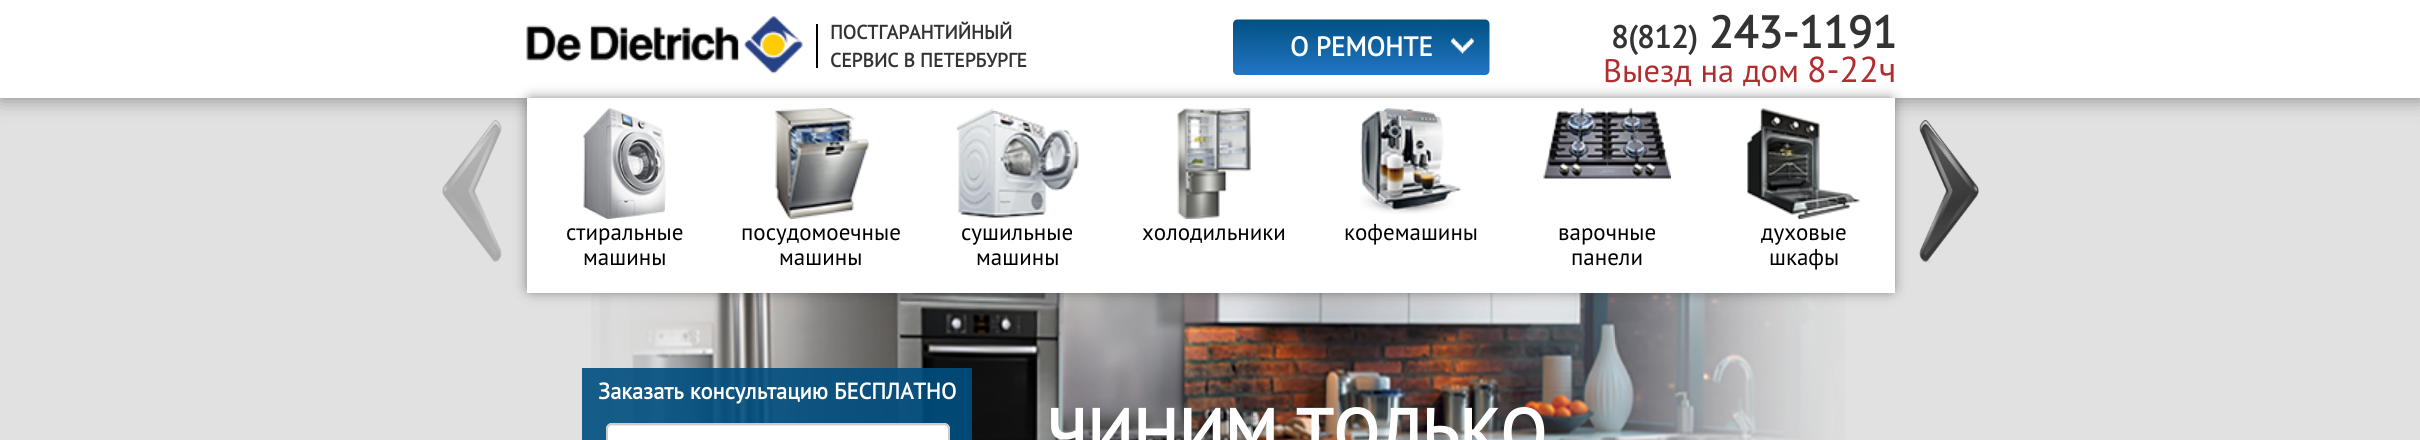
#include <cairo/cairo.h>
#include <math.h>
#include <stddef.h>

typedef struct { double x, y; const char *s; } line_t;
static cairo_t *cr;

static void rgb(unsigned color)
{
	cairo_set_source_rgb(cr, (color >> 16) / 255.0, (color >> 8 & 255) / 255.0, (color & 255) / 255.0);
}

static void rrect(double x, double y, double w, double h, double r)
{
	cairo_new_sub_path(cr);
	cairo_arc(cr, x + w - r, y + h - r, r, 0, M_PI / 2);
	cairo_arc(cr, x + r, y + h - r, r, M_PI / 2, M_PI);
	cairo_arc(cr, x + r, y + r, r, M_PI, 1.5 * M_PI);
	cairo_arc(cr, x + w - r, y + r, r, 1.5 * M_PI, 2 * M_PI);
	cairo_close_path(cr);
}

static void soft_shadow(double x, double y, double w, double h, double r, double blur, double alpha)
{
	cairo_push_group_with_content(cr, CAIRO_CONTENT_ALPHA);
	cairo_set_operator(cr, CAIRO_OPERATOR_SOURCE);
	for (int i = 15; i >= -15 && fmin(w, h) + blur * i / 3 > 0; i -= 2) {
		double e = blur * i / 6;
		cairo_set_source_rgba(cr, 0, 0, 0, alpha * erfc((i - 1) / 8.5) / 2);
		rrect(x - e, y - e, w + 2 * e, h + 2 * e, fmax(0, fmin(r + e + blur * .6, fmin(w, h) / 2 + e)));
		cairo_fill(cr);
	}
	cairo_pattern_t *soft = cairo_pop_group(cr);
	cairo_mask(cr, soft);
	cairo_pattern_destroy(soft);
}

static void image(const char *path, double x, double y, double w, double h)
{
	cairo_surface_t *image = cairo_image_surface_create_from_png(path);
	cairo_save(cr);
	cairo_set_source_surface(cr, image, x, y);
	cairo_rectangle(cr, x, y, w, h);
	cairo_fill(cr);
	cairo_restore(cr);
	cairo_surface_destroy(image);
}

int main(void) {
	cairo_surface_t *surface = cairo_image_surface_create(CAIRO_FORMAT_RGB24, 2420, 440);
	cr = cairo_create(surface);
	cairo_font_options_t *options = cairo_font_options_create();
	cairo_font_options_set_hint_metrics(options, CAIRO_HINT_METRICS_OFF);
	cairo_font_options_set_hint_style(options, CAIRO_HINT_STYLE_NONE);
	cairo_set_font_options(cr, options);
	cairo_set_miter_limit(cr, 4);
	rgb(0xe1e1e1);
	cairo_paint(cr);
	rgb(0x808080);
	soft_shadow(0, 0, 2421, 98, 0, 10.5, 1);
	rgb(0xffffff);
	cairo_rectangle(cr, 0, 0, 2420, 98);
	cairo_fill(cr);
	image("img/1.png", 526, 16, 277, 58);
	rgb(0x000000);
	cairo_rectangle(cr, 816, 24, 2, 44);
	cairo_fill(cr);
	image("img/2.png", 1233, 19, 257, 56);
	image("img/12.png", 591, 293, 1254, 147);
	rgb(0x333333);
	soft_shadow(531, 102, 1359, 186, 0, 7.5, 1);
	rgb(0xffffff);
	cairo_rectangle(cr, 527, 98, 1368, 195);
	cairo_fill(cr);
	image("img/3.png", 442, 120, 60, 142);
	image("img/4.png", 583, 108, 83, 111);
	image("img/5.png", 775, 108, 94, 111);
	image("img/6.png", 957, 108, 122, 110);
	image("img/7.png", 1177, 108, 74, 111);
	image("img/8.png", 1360, 108, 101, 106);
	image("img/9.png", 1543, 108, 128, 71);
	image("img/10.png", 1747, 108, 113, 111);
	image("img/11.png", 1919, 120, 60, 143);
	cairo_set_source_rgba(cr, 0.004, 0.306, 0.498, 0.9);
	cairo_rectangle(cr, 582, 368, 390, 72);
	cairo_fill(cr);
	rgb(0xffffff);
	rrect(606, 423, 344, 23, 6);
	cairo_fill(cr);
	rgb(0xececec);
	cairo_new_path(cr);
	cairo_move_to(cr, 612, 426);
	cairo_line_to(cr, 944, 426);
	cairo_curve_to(cr, 946, 426, 948, 428, 948, 430);
	cairo_curve_to(cr, 948, 427, 946, 425, 943, 425);
	cairo_line_to(cr, 613, 425);
	cairo_curve_to(cr, 610, 425, 608, 427, 608, 430);
	cairo_curve_to(cr, 608, 428, 610, 426, 612, 426);
	cairo_close_path(cr);
	cairo_fill(cr);
	rrect(607, 424, 342, 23, 5);
	rgb(0xcccccc);
	cairo_stroke(cr);
	cairo_select_font_face(cr, "PT Sans", CAIRO_FONT_SLANT_NORMAL, CAIRO_FONT_WEIGHT_BOLD);
	cairo_set_font_size(cr, 19.5);
	rgb(0x333333);
	cairo_move_to(cr, 830, 39);
	cairo_show_text(cr, "ПОСТГАРАНТИЙНЫЙ");
	cairo_move_to(cr, 830, 67);
	cairo_show_text(cr, "СЕРВИС В ПЕТЕРБУРГЕ");
	cairo_set_font_size(cr, 27);
	rgb(0xffffff);
	cairo_move_to(cr, 1290, 56);
	cairo_show_text(cr, "О РЕМОНТЕ");
	cairo_set_font_size(cr, 31.5);
	rgb(0x333333);
	cairo_move_to(cr, 1611, 48);
	cairo_show_text(cr, "8(812)");
	cairo_set_font_size(cr, 45);
	cairo_move_to(cr, 1709, 48);
	cairo_show_text(cr, "243-1191");
	cairo_select_font_face(cr, "PT Sans", CAIRO_FONT_SLANT_NORMAL, CAIRO_FONT_WEIGHT_NORMAL);
	cairo_set_font_size(cr, 32.5);
	rgb(0xb02d30);
	cairo_move_to(cr, 1603, 82);
	cairo_show_text(cr, "Выезд на дом");
	cairo_set_font_size(cr, 36);
	cairo_move_to(cr, 1807, 82);
	cairo_show_text(cr, "8-22ч");
	cairo_set_font_size(cr, 23);
	rgb(0x000000);
	{
		static const line_t items[] = {
			{566, 240, "стиральные"},
			{583, 265, "машины"},
			{741, 240, "посудомоечные"},
			{779, 265, "машины"},
			{961, 240, "сушильные"},
			{976, 265, "машины"},
			{1142, 240, "холодильники"},
			{1344, 240, "кофемашины"},
			{1558, 240, "варочные"},
			{1571, 265, "панели"},
			{1761, 240, "духовые"},
			{1769, 265, "шкафы"},
		};
		for (size_t i = 0; i < sizeof items / sizeof *items; i++) {
			cairo_move_to(cr, items[i].x, items[i].y);
			cairo_show_text(cr, items[i].s);
		}
	}
	cairo_select_font_face(cr, "PT Sans", CAIRO_FONT_SLANT_NORMAL, CAIRO_FONT_WEIGHT_BOLD);
	cairo_set_font_size(cr, 22.5);
	rgb(0xffffff);
	cairo_move_to(cr, 598, 399);
	cairo_show_text(cr, "Заказать консультацию БЕСПЛАТНО");
	cairo_set_font_size(cr, 67.5);
	cairo_move_to(cr, 1046, 457);
	cairo_show_text(cr, "ЧИНИМ ТОЛЬКО");
	cairo_surface_write_to_png(surface, "page.png");
	cairo_font_options_destroy(options);
	cairo_destroy(cr);
	cairo_surface_destroy(surface);
	return 0;
}
